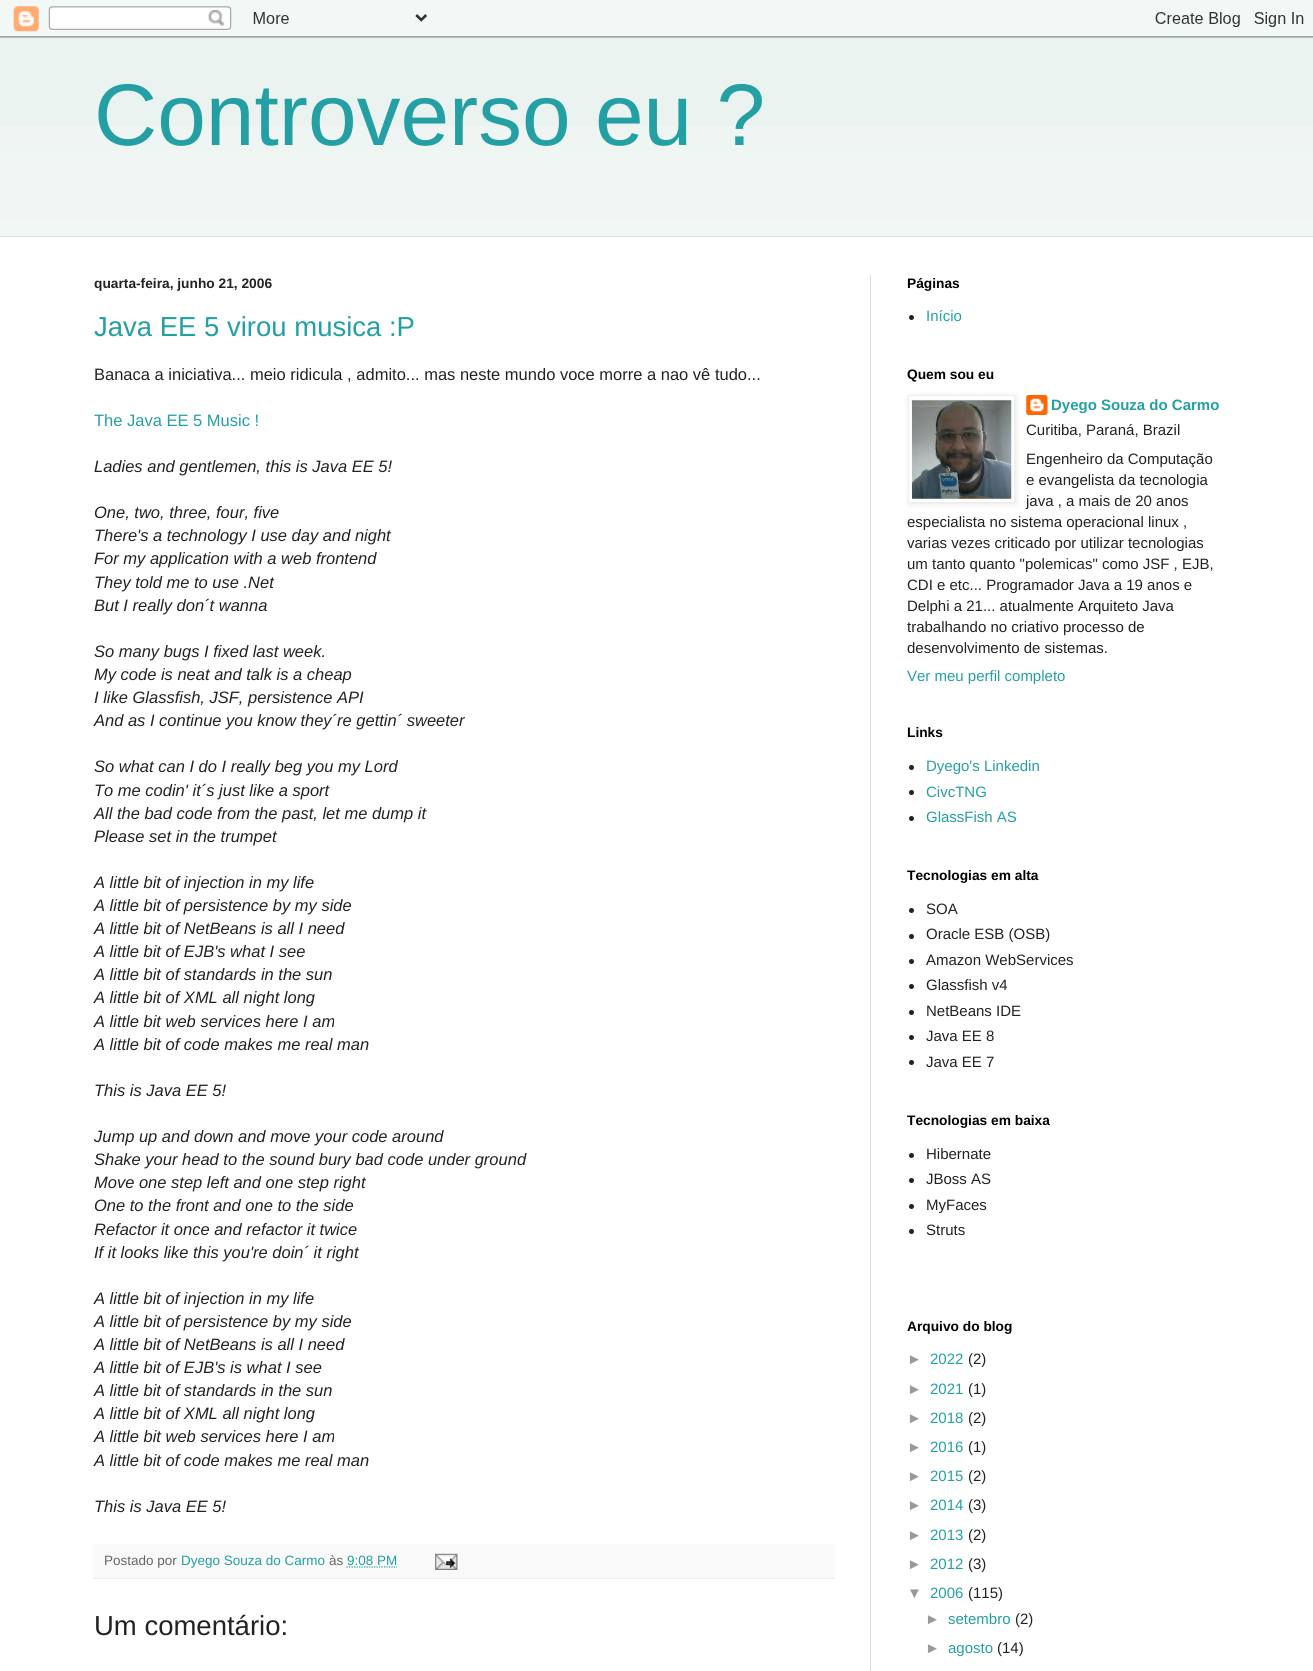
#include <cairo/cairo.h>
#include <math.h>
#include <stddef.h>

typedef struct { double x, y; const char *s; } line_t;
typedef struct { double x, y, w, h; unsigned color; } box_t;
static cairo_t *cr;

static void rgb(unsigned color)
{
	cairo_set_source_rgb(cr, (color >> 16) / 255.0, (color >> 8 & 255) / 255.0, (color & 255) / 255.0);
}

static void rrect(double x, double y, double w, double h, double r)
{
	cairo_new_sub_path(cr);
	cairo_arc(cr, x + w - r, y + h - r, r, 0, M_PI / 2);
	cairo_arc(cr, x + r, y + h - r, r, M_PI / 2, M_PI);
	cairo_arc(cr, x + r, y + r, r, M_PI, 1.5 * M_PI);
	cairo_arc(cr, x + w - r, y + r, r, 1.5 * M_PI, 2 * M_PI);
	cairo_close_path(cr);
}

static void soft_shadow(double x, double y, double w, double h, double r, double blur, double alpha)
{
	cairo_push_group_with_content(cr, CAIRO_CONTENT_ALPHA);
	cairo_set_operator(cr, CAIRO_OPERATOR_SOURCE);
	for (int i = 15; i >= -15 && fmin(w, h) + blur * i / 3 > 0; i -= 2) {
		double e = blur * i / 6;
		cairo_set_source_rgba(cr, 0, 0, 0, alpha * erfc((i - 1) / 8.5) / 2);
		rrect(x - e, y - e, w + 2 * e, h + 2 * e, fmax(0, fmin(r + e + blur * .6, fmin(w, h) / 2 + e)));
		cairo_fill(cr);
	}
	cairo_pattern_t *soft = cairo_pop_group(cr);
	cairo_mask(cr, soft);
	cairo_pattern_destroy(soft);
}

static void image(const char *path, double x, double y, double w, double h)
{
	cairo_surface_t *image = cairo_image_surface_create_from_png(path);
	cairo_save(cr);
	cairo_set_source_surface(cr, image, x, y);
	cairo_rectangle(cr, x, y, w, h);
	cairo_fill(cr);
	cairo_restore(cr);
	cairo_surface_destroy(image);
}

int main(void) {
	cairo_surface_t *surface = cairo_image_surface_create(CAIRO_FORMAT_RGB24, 1313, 1671);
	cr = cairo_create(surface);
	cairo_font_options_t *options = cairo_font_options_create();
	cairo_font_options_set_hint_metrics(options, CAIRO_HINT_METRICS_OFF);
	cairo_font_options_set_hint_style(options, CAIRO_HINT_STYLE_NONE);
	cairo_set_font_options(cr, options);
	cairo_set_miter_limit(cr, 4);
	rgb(0xeaf3ef);
	cairo_paint(cr);
	image("img/1.png", 0, 0, 1313, 38);
	{
		static const box_t items[] = {
			{0, 237, 1313, 1434, 0xffffff},
			{0, 236, 1313, 1, 0xdddddd},
			{870, 275, 1, 1396, 0xdddddd},
			{93, 1544, 742, 34, 0xf9f9f9},
			{93, 1578, 742, 1, 0xeeeeee},
		};
		for (size_t i = 0; i < sizeof items / sizeof *items; i++) {
			rgb(items[i].color);
			cairo_rectangle(cr, items[i].x, items[i].y, items[i].w, items[i].h);
			cairo_fill(cr);
		}
	}
	cairo_new_path(cr);
	cairo_move_to(cr, 346.5, 1567);
	cairo_line_to(cr, 397, 1567);
	rgb(0x249fa3);
	cairo_set_line_width(cr, 1.2);
	cairo_set_dash(cr, (double[]){1.25, 1.25}, 2, 0);
	cairo_stroke(cr);
	image("img/2.png", 435, 1553, 23, 17);
	rgb(0x222222);
	cairo_arc(cr, 911.5, 317.5, 2.5, 0, 2 * M_PI);
	cairo_fill(cr);
	rgb(0x000000);
	soft_shadow(909, 396, 107, 108, 0, 3, 0.1);
	rgb(0xffffff);
	cairo_rectangle(cr, 908.5, 395.5, 106, 107);
	cairo_fill_preserve(cr);
	rgb(0xeeeeee);
	cairo_set_line_width(cr, 1);
	cairo_set_dash(cr, NULL, 0, 0);
	cairo_stroke(cr);
	image("img/3.png", 911, 399, 101, 100);
	image("img/4.png", 1026, 395, 22, 20);
	rgb(0x222222);
	cairo_arc(cr, 911.5, 767.5, 2.5, 0, 2 * M_PI);
	cairo_fill(cr);
	cairo_arc(cr, 911.5, 792.5, 2.5, 0, 2 * M_PI);
	cairo_fill(cr);
	cairo_arc(cr, 911.5, 818.5, 2.5, 0, 2 * M_PI);
	cairo_fill(cr);
	cairo_arc(cr, 911.5, 910.5, 2.5, 0, 2 * M_PI);
	cairo_fill(cr);
	cairo_arc(cr, 911.5, 936.5, 2.5, 0, 2 * M_PI);
	cairo_fill(cr);
	cairo_arc(cr, 911.5, 961.5, 2.5, 0, 2 * M_PI);
	cairo_fill(cr);
	cairo_arc(cr, 911.5, 986.5, 2.5, 0, 2 * M_PI);
	cairo_fill(cr);
	cairo_arc(cr, 911.5, 1012.5, 2.5, 0, 2 * M_PI);
	cairo_fill(cr);
	cairo_arc(cr, 911.5, 1037.5, 2.5, 0, 2 * M_PI);
	cairo_fill(cr);
	cairo_arc(cr, 911.5, 1062.5, 2.5, 0, 2 * M_PI);
	cairo_fill(cr);
	cairo_arc(cr, 911.5, 1155.5, 2.5, 0, 2 * M_PI);
	cairo_fill(cr);
	cairo_arc(cr, 911.5, 1180.5, 2.5, 0, 2 * M_PI);
	cairo_fill(cr);
	cairo_arc(cr, 911.5, 1206.5, 2.5, 0, 2 * M_PI);
	cairo_fill(cr);
	cairo_arc(cr, 911.5, 1231.5, 2.5, 0, 2 * M_PI);
	cairo_fill(cr);
	image("img/5.png", 0, 126, 1313, 110);
	cairo_select_font_face(cr, "Liberation Sans", CAIRO_FONT_SLANT_NORMAL, CAIRO_FONT_WEIGHT_NORMAL);
	cairo_set_font_size(cr, 87.5);
	rgb(0x249fa3);
	cairo_move_to(cr, 94, 145);
	cairo_show_text(cr, "Controverso eu ?");
	cairo_select_font_face(cr, "Liberation Sans", CAIRO_FONT_SLANT_NORMAL, CAIRO_FONT_WEIGHT_BOLD);
	cairo_set_font_size(cr, 13.75);
	rgb(0x222222);
	cairo_move_to(cr, 94, 288);
	cairo_show_text(cr, "quarta-feira, junho 21, 2006");
	cairo_select_font_face(cr, "Liberation Sans", CAIRO_FONT_SLANT_NORMAL, CAIRO_FONT_WEIGHT_NORMAL);
	cairo_set_font_size(cr, 27.5);
	rgb(0x249fa3);
	cairo_move_to(cr, 94, 336);
	cairo_show_text(cr, "Java EE 5 virou musica :P");
	cairo_set_font_size(cr, 16.5);
	rgb(0x222222);
	cairo_move_to(cr, 94, 380);
	cairo_show_text(cr, "Banaca a iniciativa... meio ridicula , admito... mas neste mundo voce morre a nao vê tudo...");
	rgb(0x249fa3);
	cairo_move_to(cr, 94, 426);
	cairo_show_text(cr, "The Java EE 5 Music !");
	cairo_select_font_face(cr, "Liberation Sans", CAIRO_FONT_SLANT_ITALIC, CAIRO_FONT_WEIGHT_NORMAL);
	rgb(0x222222);
	{
		static const line_t items[] = {
			{94, 472, "Ladies and gentlemen, this is Java EE 5!"},
			{94, 518, "One, two, three, four, five"},
			{94, 541, "There's a technology I use day and night"},
			{94, 564, "For my application with a web frontend"},
			{94, 588, "They told me to use .Net"},
			{94, 611, "But I really don´t wanna"},
			{94, 657, "So many bugs I fixed last week."},
			{94, 680, "My code is neat and talk is a cheap"},
			{94, 703, "I like Glassfish, JSF, persistence API"},
			{94, 726, "And as I continue you know they´re gettin´ sweeter"},
			{94, 772, "So what can I do I really beg you my Lord"},
			{94, 796, "To me codin' it´s just like a sport"},
			{94, 819, "All the bad code from the past, let me dump it"},
			{94, 842, "Please set in the trumpet"},
			{94, 888, "A little bit of injection in my life"},
			{94, 911, "A little bit of persistence by my side"},
			{94, 934, "A little bit of NetBeans is all I need"},
			{94, 957, "A little bit of EJB's what I see"},
			{94, 980, "A little bit of standards in the sun"},
			{94, 1003, "A little bit of XML all night long"},
			{94, 1027, "A little bit web services here I am"},
			{94, 1050, "A little bit of code makes me real man"},
			{94, 1096, "This is Java EE 5!"},
			{94, 1142, "Jump up and down and move your code around"},
			{94, 1165, "Shake your head to the sound bury bad code under ground"},
			{94, 1188, "Move one step left and one step right"},
			{94, 1211, "One to the front and one to the side"},
			{94, 1235, "Refactor it once and refactor it twice"},
			{94, 1258, "If it looks like this you're doin´ it right"},
			{94, 1304, "A little bit of injection in my life"},
			{94, 1327, "A little bit of persistence by my side"},
			{94, 1350, "A little bit of NetBeans is all I need"},
			{94, 1373, "A little bit of EJB's is what I see"},
			{94, 1396, "A little bit of standards in the sun"},
			{94, 1419, "A little bit of XML all night long"},
			{94, 1442, "A little bit web services here I am"},
			{94, 1466, "A little bit of code makes me real man"},
			{94, 1512, "This is Java EE 5!"},
		};
		for (size_t i = 0; i < sizeof items / sizeof *items; i++) {
			cairo_move_to(cr, items[i].x, items[i].y);
			cairo_show_text(cr, items[i].s);
		}
	}
	cairo_select_font_face(cr, "Liberation Sans", CAIRO_FONT_SLANT_NORMAL, CAIRO_FONT_WEIGHT_NORMAL);
	cairo_set_font_size(cr, 13.5);
	rgb(0x666666);
	cairo_move_to(cr, 104, 1565);
	cairo_show_text(cr, "Postado por");
	rgb(0x249fa3);
	cairo_move_to(cr, 181, 1565);
	cairo_show_text(cr, "Dyego Souza do Carmo");
	rgb(0x666666);
	cairo_move_to(cr, 329, 1565);
	cairo_show_text(cr, "às");
	rgb(0x249fa3);
	cairo_move_to(cr, 347, 1565);
	cairo_show_text(cr, "9:08 PM");
	cairo_set_font_size(cr, 27.5);
	rgb(0x222222);
	cairo_move_to(cr, 94, 1635);
	cairo_show_text(cr, "Um comentário:");
	cairo_select_font_face(cr, "Liberation Sans", CAIRO_FONT_SLANT_NORMAL, CAIRO_FONT_WEIGHT_BOLD);
	cairo_set_font_size(cr, 13.75);
	rgb(0x000000);
	cairo_move_to(cr, 907, 288);
	cairo_show_text(cr, "Páginas");
	cairo_select_font_face(cr, "Liberation Sans", CAIRO_FONT_SLANT_NORMAL, CAIRO_FONT_WEIGHT_NORMAL);
	cairo_set_font_size(cr, 15);
	rgb(0x249fa3);
	cairo_move_to(cr, 926, 321);
	cairo_show_text(cr, "Início");
	cairo_select_font_face(cr, "Liberation Sans", CAIRO_FONT_SLANT_NORMAL, CAIRO_FONT_WEIGHT_BOLD);
	cairo_set_font_size(cr, 13.75);
	rgb(0x000000);
	cairo_move_to(cr, 907, 379);
	cairo_show_text(cr, "Quem sou eu");
	cairo_set_font_size(cr, 15);
	rgb(0x249fa3);
	cairo_move_to(cr, 1051, 410);
	cairo_show_text(cr, "Dyego Souza do Carmo");
	cairo_select_font_face(cr, "Liberation Sans", CAIRO_FONT_SLANT_NORMAL, CAIRO_FONT_WEIGHT_NORMAL);
	rgb(0x222222);
	{
		static const line_t items[] = {
			{1026, 435, "Curitiba, Paraná, Brazil"},
			{1026, 464, "Engenheiro da Computação"},
			{1026, 485, "e evangelista da tecnologia"},
			{1026, 506, "java , a mais de 20 anos"},
			{907, 527, "especialista no sistema operacional linux ,"},
			{907, 548, "varias vezes criticado por utilizar tecnologias"},
			{907, 569, "um tanto quanto \"polemicas\" como JSF , EJB,"},
			{907, 590, "CDI e etc... Programador Java a 19 anos e"},
			{907, 611, "Delphi a 21... atualmente Arquiteto Java"},
			{907, 632, "trabalhando no criativo processo de"},
			{907, 653, "desenvolvimento de sistemas."},
		};
		for (size_t i = 0; i < sizeof items / sizeof *items; i++) {
			cairo_move_to(cr, items[i].x, items[i].y);
			cairo_show_text(cr, items[i].s);
		}
	}
	rgb(0x249fa3);
	cairo_move_to(cr, 907, 681);
	cairo_show_text(cr, "Ver meu perfil completo");
	cairo_select_font_face(cr, "Liberation Sans", CAIRO_FONT_SLANT_NORMAL, CAIRO_FONT_WEIGHT_BOLD);
	cairo_set_font_size(cr, 13.75);
	rgb(0x000000);
	cairo_move_to(cr, 907, 737);
	cairo_show_text(cr, "Links");
	cairo_select_font_face(cr, "Liberation Sans", CAIRO_FONT_SLANT_NORMAL, CAIRO_FONT_WEIGHT_NORMAL);
	cairo_set_font_size(cr, 15);
	rgb(0x249fa3);
	{
		static const line_t items[] = {
			{926, 771, "Dyego's Linkedin"},
			{926, 797, "CivcTNG"},
			{926, 822, "GlassFish AS"},
		};
		for (size_t i = 0; i < sizeof items / sizeof *items; i++) {
			cairo_move_to(cr, items[i].x, items[i].y);
			cairo_show_text(cr, items[i].s);
		}
	}
	cairo_select_font_face(cr, "Liberation Sans", CAIRO_FONT_SLANT_NORMAL, CAIRO_FONT_WEIGHT_BOLD);
	cairo_set_font_size(cr, 13.75);
	rgb(0x000000);
	cairo_move_to(cr, 907, 880);
	cairo_show_text(cr, "Tecnologias em alta");
	cairo_select_font_face(cr, "Liberation Sans", CAIRO_FONT_SLANT_NORMAL, CAIRO_FONT_WEIGHT_NORMAL);
	cairo_set_font_size(cr, 15);
	rgb(0x222222);
	{
		static const line_t items[] = {
			{926, 914, "SOA"},
			{926, 939, "Oracle ESB (OSB)"},
			{926, 965, "Amazon WebServices"},
			{926, 990, "Glassfish v4"},
			{926, 1016, "NetBeans IDE"},
			{926, 1041, "Java EE 8"},
			{926, 1067, "Java EE 7"},
		};
		for (size_t i = 0; i < sizeof items / sizeof *items; i++) {
			cairo_move_to(cr, items[i].x, items[i].y);
			cairo_show_text(cr, items[i].s);
		}
	}
	cairo_select_font_face(cr, "Liberation Sans", CAIRO_FONT_SLANT_NORMAL, CAIRO_FONT_WEIGHT_BOLD);
	cairo_set_font_size(cr, 13.75);
	rgb(0x000000);
	cairo_move_to(cr, 907, 1125);
	cairo_show_text(cr, "Tecnologias em baixa");
	cairo_select_font_face(cr, "Liberation Sans", CAIRO_FONT_SLANT_NORMAL, CAIRO_FONT_WEIGHT_NORMAL);
	cairo_set_font_size(cr, 15);
	rgb(0x222222);
	{
		static const line_t items[] = {
			{926, 1159, "Hibernate"},
			{926, 1184, "JBoss AS"},
			{926, 1210, "MyFaces"},
			{926, 1235, "Struts"},
		};
		for (size_t i = 0; i < sizeof items / sizeof *items; i++) {
			cairo_move_to(cr, items[i].x, items[i].y);
			cairo_show_text(cr, items[i].s);
		}
	}
	cairo_select_font_face(cr, "Liberation Sans", CAIRO_FONT_SLANT_NORMAL, CAIRO_FONT_WEIGHT_BOLD);
	cairo_set_font_size(cr, 13.75);
	rgb(0x000000);
	cairo_move_to(cr, 907, 1331);
	cairo_show_text(cr, "Arquivo do blog");
	cairo_select_font_face(cr, "Liberation Sans", CAIRO_FONT_SLANT_NORMAL, CAIRO_FONT_WEIGHT_NORMAL);
	cairo_set_font_size(cr, 15);
	rgb(0x999999);
	cairo_move_to(cr, 907, 1364);
	cairo_show_text(cr, "►");
	rgb(0x249fa3);
	cairo_move_to(cr, 930, 1364);
	cairo_show_text(cr, "2022");
	rgb(0x222222);
	cairo_move_to(cr, 968, 1364);
	cairo_show_text(cr, "(2)");
	rgb(0x999999);
	cairo_move_to(cr, 907, 1394);
	cairo_show_text(cr, "►");
	rgb(0x249fa3);
	cairo_move_to(cr, 930, 1394);
	cairo_show_text(cr, "2021");
	rgb(0x222222);
	cairo_move_to(cr, 968, 1394);
	cairo_show_text(cr, "(1)");
	rgb(0x999999);
	cairo_move_to(cr, 907, 1423);
	cairo_show_text(cr, "►");
	rgb(0x249fa3);
	cairo_move_to(cr, 930, 1423);
	cairo_show_text(cr, "2018");
	rgb(0x222222);
	cairo_move_to(cr, 968, 1423);
	cairo_show_text(cr, "(2)");
	rgb(0x999999);
	cairo_move_to(cr, 907, 1452);
	cairo_show_text(cr, "►");
	rgb(0x249fa3);
	cairo_move_to(cr, 930, 1452);
	cairo_show_text(cr, "2016");
	rgb(0x222222);
	cairo_move_to(cr, 968, 1452);
	cairo_show_text(cr, "(1)");
	rgb(0x999999);
	cairo_move_to(cr, 907, 1481);
	cairo_show_text(cr, "►");
	rgb(0x249fa3);
	cairo_move_to(cr, 930, 1481);
	cairo_show_text(cr, "2015");
	rgb(0x222222);
	cairo_move_to(cr, 968, 1481);
	cairo_show_text(cr, "(2)");
	rgb(0x999999);
	cairo_move_to(cr, 907, 1510);
	cairo_show_text(cr, "►");
	rgb(0x249fa3);
	cairo_move_to(cr, 930, 1510);
	cairo_show_text(cr, "2014");
	rgb(0x222222);
	cairo_move_to(cr, 968, 1510);
	cairo_show_text(cr, "(3)");
	rgb(0x999999);
	cairo_move_to(cr, 907, 1540);
	cairo_show_text(cr, "►");
	rgb(0x249fa3);
	cairo_move_to(cr, 930, 1540);
	cairo_show_text(cr, "2013");
	rgb(0x222222);
	cairo_move_to(cr, 968, 1540);
	cairo_show_text(cr, "(2)");
	rgb(0x999999);
	cairo_move_to(cr, 907, 1569);
	cairo_show_text(cr, "►");
	rgb(0x249fa3);
	cairo_move_to(cr, 930, 1569);
	cairo_show_text(cr, "2012");
	rgb(0x222222);
	cairo_move_to(cr, 968, 1569);
	cairo_show_text(cr, "(3)");
	rgb(0x999999);
	cairo_move_to(cr, 907, 1598);
	cairo_show_text(cr, "▼");
	rgb(0x249fa3);
	cairo_move_to(cr, 930, 1598);
	cairo_show_text(cr, "2006");
	rgb(0x222222);
	cairo_move_to(cr, 968, 1598);
	cairo_show_text(cr, "(115)");
	rgb(0x999999);
	cairo_move_to(cr, 925, 1624);
	cairo_show_text(cr, "►");
	rgb(0x249fa3);
	cairo_move_to(cr, 948, 1624);
	cairo_show_text(cr, "setembro");
	rgb(0x222222);
	cairo_move_to(cr, 1015, 1624);
	cairo_show_text(cr, "(2)");
	rgb(0x999999);
	cairo_move_to(cr, 925, 1653);
	cairo_show_text(cr, "►");
	rgb(0x249fa3);
	cairo_move_to(cr, 948, 1653);
	cairo_show_text(cr, "agosto");
	rgb(0x222222);
	cairo_move_to(cr, 997, 1653);
	cairo_show_text(cr, "(14)");
	cairo_surface_write_to_png(surface, "page.png");
	cairo_font_options_destroy(options);
	cairo_destroy(cr);
	cairo_surface_destroy(surface);
	return 0;
}
